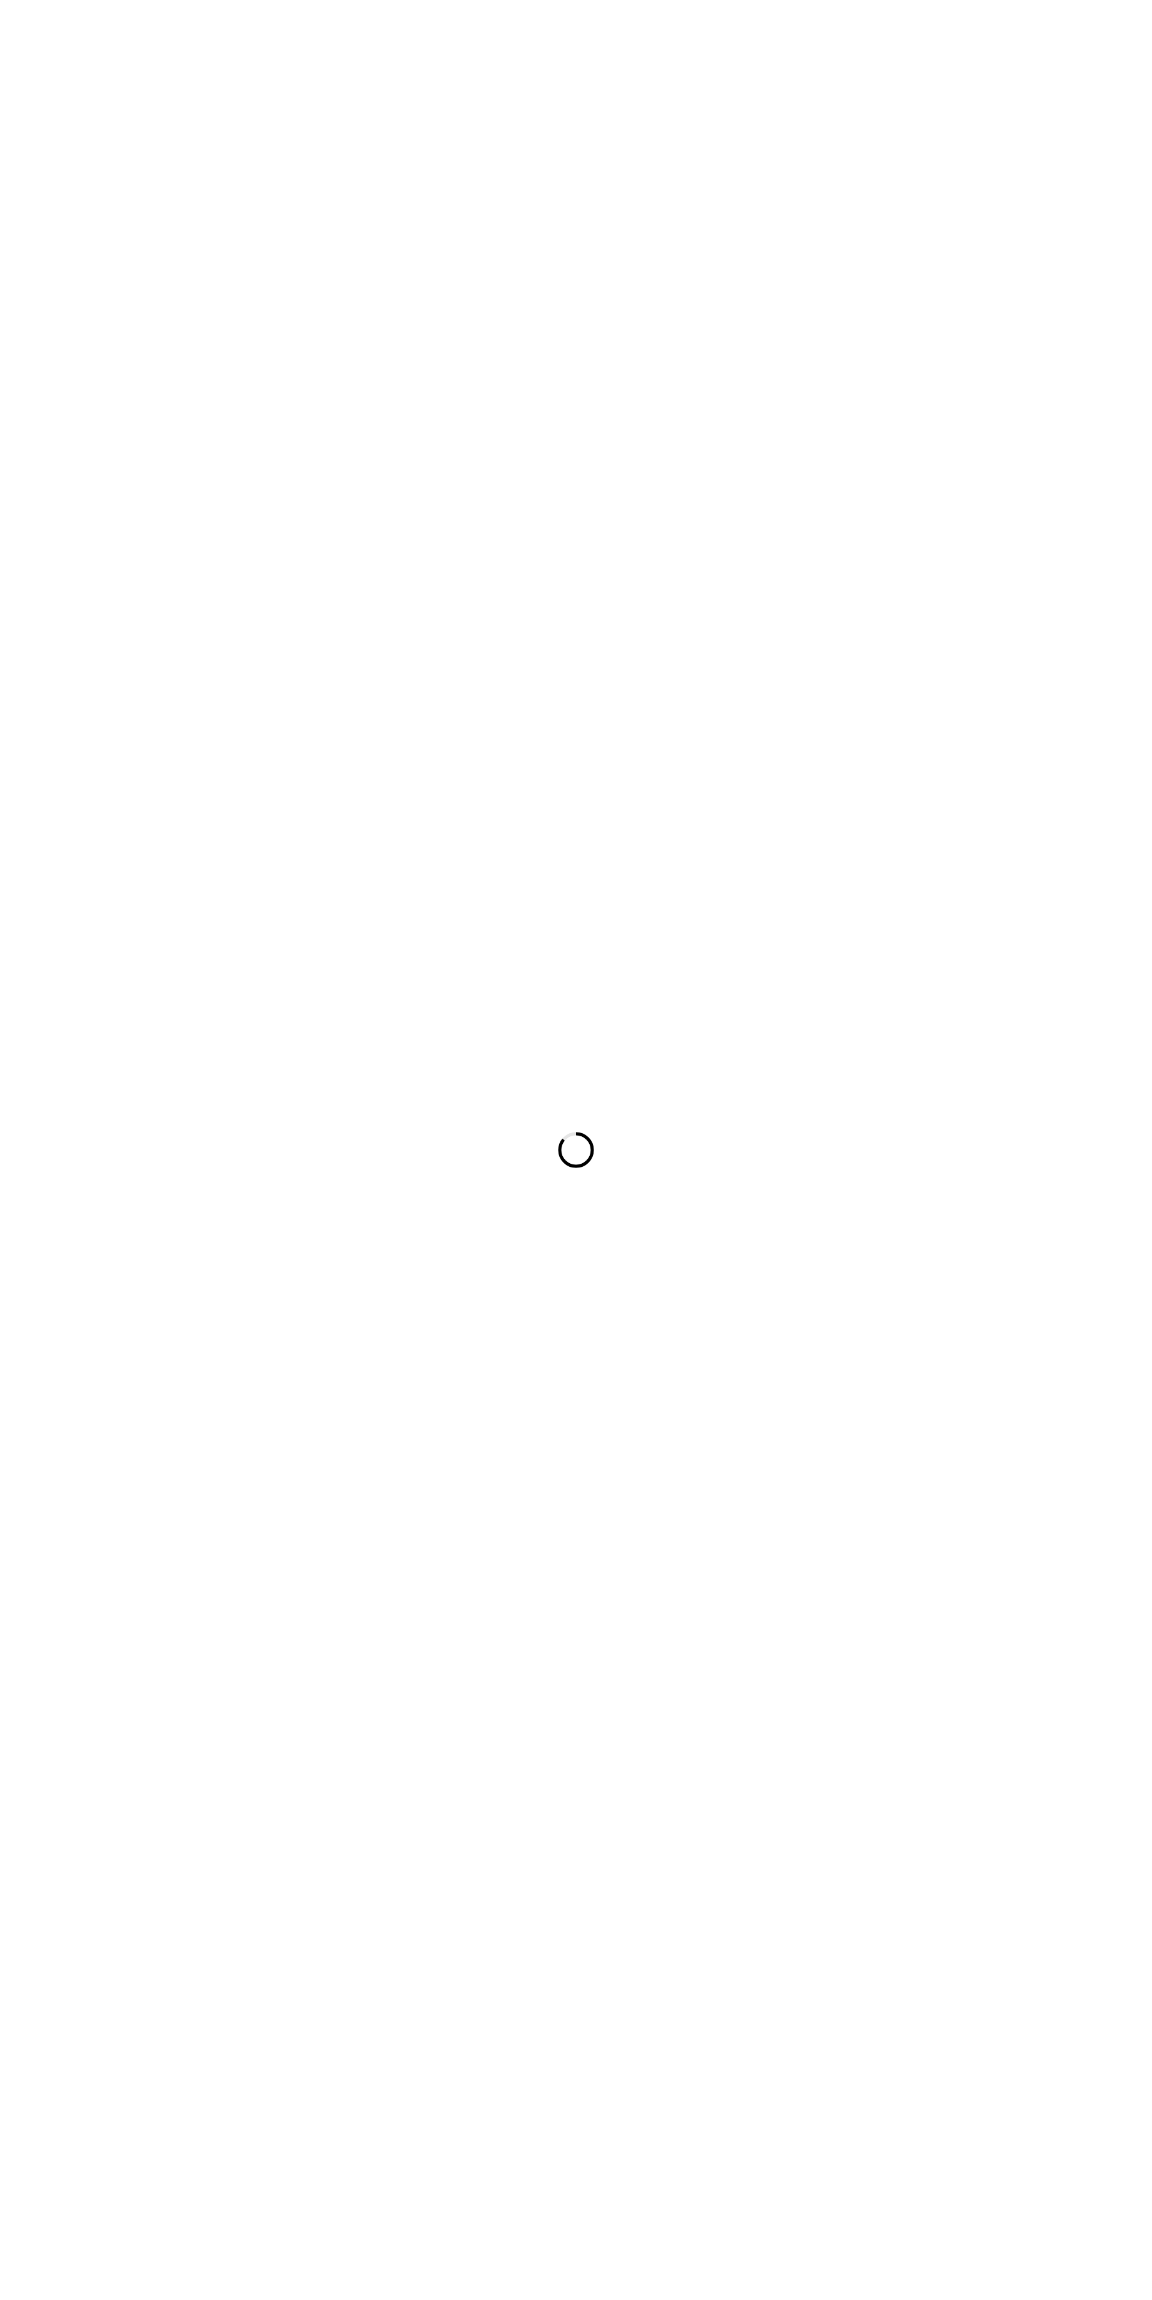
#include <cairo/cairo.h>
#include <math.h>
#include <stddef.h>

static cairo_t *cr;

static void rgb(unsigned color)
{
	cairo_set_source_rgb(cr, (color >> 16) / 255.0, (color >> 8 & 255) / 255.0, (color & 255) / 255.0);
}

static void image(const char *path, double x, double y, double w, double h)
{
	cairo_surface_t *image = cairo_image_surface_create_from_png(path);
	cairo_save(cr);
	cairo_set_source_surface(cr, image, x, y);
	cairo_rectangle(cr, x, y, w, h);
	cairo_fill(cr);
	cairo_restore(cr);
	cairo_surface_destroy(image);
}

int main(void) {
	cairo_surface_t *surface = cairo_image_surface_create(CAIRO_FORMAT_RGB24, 1152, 2300);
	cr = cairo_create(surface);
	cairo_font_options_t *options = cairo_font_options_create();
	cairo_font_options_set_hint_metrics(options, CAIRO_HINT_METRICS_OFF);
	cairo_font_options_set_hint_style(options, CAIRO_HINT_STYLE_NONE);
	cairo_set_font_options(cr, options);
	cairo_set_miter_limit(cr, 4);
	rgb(0xffffff);
	cairo_paint(cr);
	image("img/1.png", 558, 1132, 36, 36);
	cairo_surface_write_to_png(surface, "page.png");
	cairo_font_options_destroy(options);
	cairo_destroy(cr);
	cairo_surface_destroy(surface);
	return 0;
}
